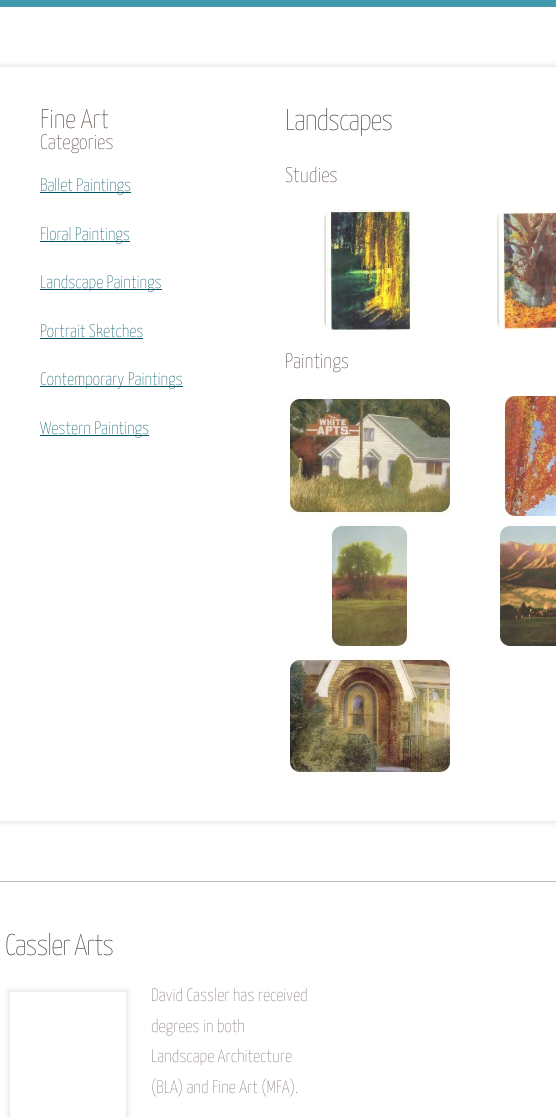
#include <cairo/cairo.h>
#include <math.h>
#include <stddef.h>

typedef struct { double x, y; const char *s; } line_t;
typedef struct { double x, y, w, h; unsigned color; } box_t;
static cairo_t *cr;

static void rgb(unsigned color)
{
	cairo_set_source_rgb(cr, (color >> 16) / 255.0, (color >> 8 & 255) / 255.0, (color & 255) / 255.0);
}

static void tracked(double x, double y, const char *s, double letter, double word)
{
	cairo_move_to(cr, x, y);
	while (*s) {
		char ch[5] = {0};
		int n = 0;
		do ch[n++] = *s++; while ((*s & 0xC0) == 0x80);
		cairo_show_text(cr, ch);
		cairo_rel_move_to(cr, letter + word * (*ch == ' '), 0);
	}
}

static void rrect(double x, double y, double w, double h, double r)
{
	cairo_new_sub_path(cr);
	cairo_arc(cr, x + w - r, y + h - r, r, 0, M_PI / 2);
	cairo_arc(cr, x + r, y + h - r, r, M_PI / 2, M_PI);
	cairo_arc(cr, x + r, y + r, r, M_PI, 1.5 * M_PI);
	cairo_arc(cr, x + w - r, y + r, r, 1.5 * M_PI, 2 * M_PI);
	cairo_close_path(cr);
}

static void soft_shadow(double x, double y, double w, double h, double r, double blur, double alpha)
{
	cairo_push_group_with_content(cr, CAIRO_CONTENT_ALPHA);
	cairo_set_operator(cr, CAIRO_OPERATOR_SOURCE);
	for (int i = 15; i >= -15 && fmin(w, h) + blur * i / 3 > 0; i -= 2) {
		double e = blur * i / 6;
		cairo_set_source_rgba(cr, 0, 0, 0, alpha * erfc((i - 1) / 8.5) / 2);
		rrect(x - e, y - e, w + 2 * e, h + 2 * e, fmax(0, fmin(r + e + blur * .6, fmin(w, h) / 2 + e)));
		cairo_fill(cr);
	}
	cairo_pattern_t *soft = cairo_pop_group(cr);
	cairo_mask(cr, soft);
	cairo_pattern_destroy(soft);
}

static void image(const char *path, double x, double y, double w, double h)
{
	cairo_surface_t *image = cairo_image_surface_create_from_png(path);
	cairo_save(cr);
	cairo_set_source_surface(cr, image, x, y);
	cairo_rectangle(cr, x, y, w, h);
	cairo_fill(cr);
	cairo_restore(cr);
	cairo_surface_destroy(image);
}

int main(void) {
	cairo_surface_t *surface = cairo_image_surface_create(CAIRO_FORMAT_RGB24, 556, 1117);
	cr = cairo_create(surface);
	cairo_font_options_t *options = cairo_font_options_create();
	cairo_font_options_set_hint_metrics(options, CAIRO_HINT_METRICS_OFF);
	cairo_font_options_set_hint_style(options, CAIRO_HINT_STYLE_NONE);
	cairo_set_font_options(cr, options);
	cairo_set_miter_limit(cr, 4);
	rgb(0xffffff);
	cairo_paint(cr);
	rgb(0x419aad);
	cairo_rectangle(cr, 0, 0, 556, 7);
	cairo_fill(cr);
	cairo_save(cr);
	cairo_set_fill_rule(cr, CAIRO_FILL_RULE_EVEN_ODD);
	cairo_new_path(cr);
	cairo_move_to(cr, 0, 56);
	cairo_line_to(cr, 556, 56);
	cairo_line_to(cr, 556, 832);
	cairo_line_to(cr, 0, 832);
	cairo_close_path(cr);
	cairo_move_to(cr, 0, 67);
	cairo_line_to(cr, 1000, 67);
	cairo_line_to(cr, 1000, 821);
	cairo_line_to(cr, 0, 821);
	cairo_close_path(cr);
	cairo_clip(cr);
	rgb(0x000000);
	soft_shadow(-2, 65, 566, 758, 0, 2.5, 0.1);
	cairo_restore(cr);
	{
		static const box_t items[] = {
			{40, 192, 91, 1, 0x005565},
			{40, 241, 90, 1, 0x005565},
			{40, 289, 122, 1, 0x005565},
			{40, 338, 103, 1, 0x005565},
			{40, 386, 143, 1, 0x005565},
			{40, 435, 109, 1, 0x005565},
		};
		for (size_t i = 0; i < sizeof items / sizeof *items; i++) {
			rgb(items[i].color);
			cairo_rectangle(cr, items[i].x, items[i].y, items[i].w, items[i].h);
			cairo_fill(cr);
		}
	}
	image("img/1.png", 321, 210, 98, 120);
	image("img/2.png", 494, 210, 62, 120);
	image("img/3.png", 290, 396, 160, 120);
	image("img/4.png", 495, 396, 61, 120);
	image("img/5.png", 322, 526, 96, 120);
	image("img/6.png", 495, 526, 61, 120);
	image("img/7.png", 290, 656, 160, 120);
	rgb(0xc2b8b9);
	cairo_rectangle(cr, 0, 881, 556, 1);
	cairo_fill(cr);
	cairo_save(cr);
	cairo_set_fill_rule(cr, CAIRO_FILL_RULE_EVEN_ODD);
	cairo_new_path(cr);
	cairo_move_to(cr, 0, 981);
	cairo_line_to(cr, 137, 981);
	cairo_line_to(cr, 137, 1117);
	cairo_line_to(cr, 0, 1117);
	cairo_close_path(cr);
	cairo_move_to(cr, 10, 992);
	cairo_line_to(cr, 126, 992);
	cairo_line_to(cr, 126, 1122);
	cairo_line_to(cr, 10, 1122);
	cairo_close_path(cr);
	cairo_clip(cr);
	rgb(0x000000);
	soft_shadow(8, 990, 120, 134, 0, 2.5, 0.1);
	cairo_restore(cr);
	cairo_select_font_face(cr, "Yanone Kaffeesatz ExtraLight", CAIRO_FONT_SLANT_NORMAL, CAIRO_FONT_WEIGHT_NORMAL);
	cairo_set_font_size(cr, 27);
	rgb(0x52413b);
	cairo_move_to(cr, 40, 128);
	cairo_show_text(cr, "Fine Art");
	cairo_set_font_size(cr, 21);
	cairo_move_to(cr, 40, 149);
	cairo_show_text(cr, "Categories");
	cairo_set_font_size(cr, 18);
	rgb(0x005565);
	{
		static const line_t items[] = {
			{40, 191, "Ballet Paintings"},
			{40, 240, "Floral Paintings"},
			{40, 288, "Landscape Paintings"},
			{40, 337, "Portrait Sketches"},
			{40, 385, "Contemporary Paintings"},
			{40, 434, "Western Paintings"},
		};
		for (size_t i = 0; i < sizeof items / sizeof *items; i++) {
			cairo_move_to(cr, items[i].x, items[i].y);
			cairo_show_text(cr, items[i].s);
		}
	}
	cairo_set_font_size(cr, 30);
	rgb(0x514849);
	tracked(285, 130, "Landscapes", -1, 0);
	cairo_set_font_size(cr, 21);
	rgb(0x52413b);
	cairo_move_to(cr, 285, 182);
	cairo_show_text(cr, "Studies");
	cairo_move_to(cr, 285, 368);
	cairo_show_text(cr, "Paintings");
	cairo_set_font_size(cr, 30);
	rgb(0x514849);
	tracked(5, 955, "Cassler Arts", -1, 0);
	cairo_set_font_size(cr, 18);
	rgb(0x7c6e69);
	{
		static const line_t items[] = {
			{151, 1001, "David Cassler has received"},
			{151, 1032, "degrees in both"},
			{151, 1062, "Landscape Architecture"},
			{151, 1093, "(BLA) and Fine Art (MFA)."},
		};
		for (size_t i = 0; i < sizeof items / sizeof *items; i++) {
			cairo_move_to(cr, items[i].x, items[i].y);
			cairo_show_text(cr, items[i].s);
		}
	}
	cairo_surface_write_to_png(surface, "page.png");
	cairo_font_options_destroy(options);
	cairo_destroy(cr);
	cairo_surface_destroy(surface);
	return 0;
}
